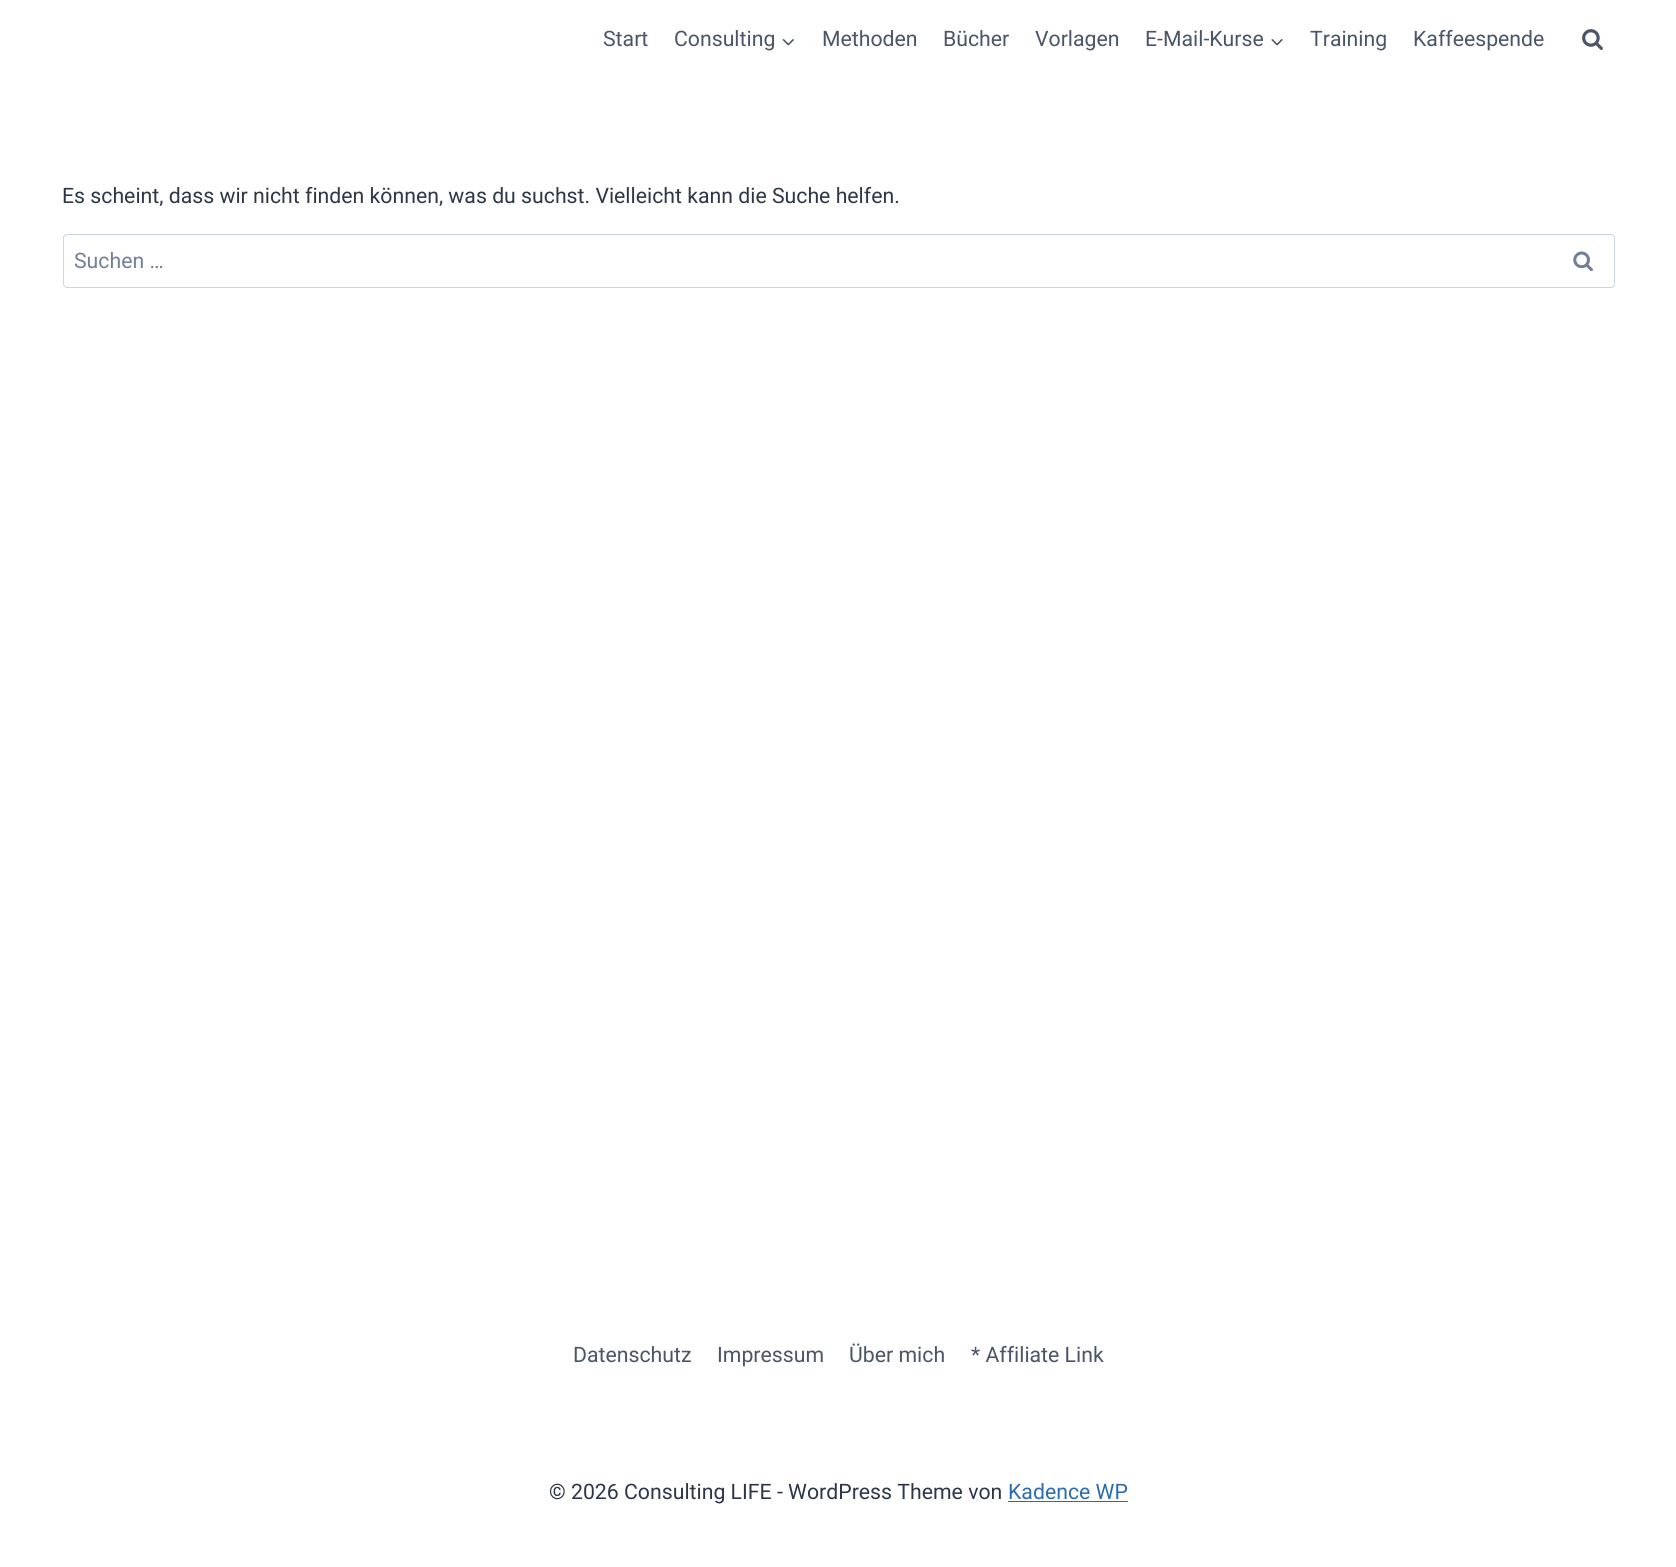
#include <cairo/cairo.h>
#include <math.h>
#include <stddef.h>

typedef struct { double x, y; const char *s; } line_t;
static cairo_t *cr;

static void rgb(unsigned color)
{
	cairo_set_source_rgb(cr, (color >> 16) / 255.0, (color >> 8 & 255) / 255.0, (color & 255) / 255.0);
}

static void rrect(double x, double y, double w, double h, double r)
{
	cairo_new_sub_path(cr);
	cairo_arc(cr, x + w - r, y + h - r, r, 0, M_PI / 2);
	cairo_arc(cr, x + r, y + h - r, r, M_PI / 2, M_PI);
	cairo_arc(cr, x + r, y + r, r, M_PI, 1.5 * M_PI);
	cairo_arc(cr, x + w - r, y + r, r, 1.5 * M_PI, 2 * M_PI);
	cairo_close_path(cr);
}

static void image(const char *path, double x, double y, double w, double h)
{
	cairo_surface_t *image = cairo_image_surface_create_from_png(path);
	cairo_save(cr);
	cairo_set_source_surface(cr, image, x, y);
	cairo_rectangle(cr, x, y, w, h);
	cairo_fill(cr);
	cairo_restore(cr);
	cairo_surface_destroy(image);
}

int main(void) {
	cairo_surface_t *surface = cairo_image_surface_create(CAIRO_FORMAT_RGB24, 1676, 1567);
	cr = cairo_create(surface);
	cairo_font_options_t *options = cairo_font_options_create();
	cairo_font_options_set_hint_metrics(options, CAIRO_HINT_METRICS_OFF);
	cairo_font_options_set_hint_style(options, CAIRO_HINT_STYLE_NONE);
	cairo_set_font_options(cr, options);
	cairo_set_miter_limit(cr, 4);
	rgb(0xffffff);
	cairo_paint(cr);
	image("img/1.png", 782, 39, 12, 7);
	image("img/2.png", 1271, 39, 12, 7);
	image("img/3.png", 1582, 29, 21, 21);
	rrect(63.5, 234.5, 1551, 53, 3.5);
	rgb(0xcbd5e0);
	cairo_set_line_width(cr, 1);
	cairo_stroke(cr);
	image("img/4.png", 1573, 251, 20, 20);
	rgb(0x2b6cb0);
	cairo_rectangle(cr, 1008, 1501, 120, 1);
	cairo_fill(cr);
	cairo_select_font_face(cr, "Roboto", CAIRO_FONT_SLANT_NORMAL, CAIRO_FONT_WEIGHT_NORMAL);
	cairo_set_font_size(cr, 21.25);
	rgb(0x4a5568);
	{
		static const line_t items[] = {
			{603, 46, "Start"},
			{674, 46, "Consulting"},
			{822, 46, "Methoden"},
			{943, 46, "Bücher"},
			{1035, 46, "Vorlagen"},
			{1145, 46, "E-Mail-Kurse"},
			{1310, 46, "Training"},
			{1413, 46, "Kaffeespende"},
		};
		for (size_t i = 0; i < sizeof items / sizeof *items; i++) {
			cairo_move_to(cr, items[i].x, items[i].y);
			cairo_show_text(cr, items[i].s);
		}
	}
	rgb(0x2d3748);
	cairo_move_to(cr, 62, 203);
	cairo_show_text(cr, "Es scheint, dass wir nicht finden können, was du suchst. Vielleicht kann die Suche helfen.");
	rgb(0x718096);
	cairo_move_to(cr, 74, 268);
	cairo_show_text(cr, "Suchen …");
	rgb(0x4a5568);
	{
		static const line_t items[] = {
			{573, 1362, "Datenschutz"},
			{717, 1362, "Impressum"},
			{849, 1362, "Über mich"},
			{971, 1362, "* Affiliate Link"},
		};
		for (size_t i = 0; i < sizeof items / sizeof *items; i++) {
			cairo_move_to(cr, items[i].x, items[i].y);
			cairo_show_text(cr, items[i].s);
		}
	}
	rgb(0x2d3748);
	cairo_move_to(cr, 549, 1499);
	cairo_show_text(cr, "© 2026 Consulting LIFE - WordPress Theme von");
	rgb(0x2b6cb0);
	cairo_move_to(cr, 1008, 1499);
	cairo_show_text(cr, "Kadence WP");
	cairo_surface_write_to_png(surface, "page.png");
	cairo_font_options_destroy(options);
	cairo_destroy(cr);
	cairo_surface_destroy(surface);
	return 0;
}
